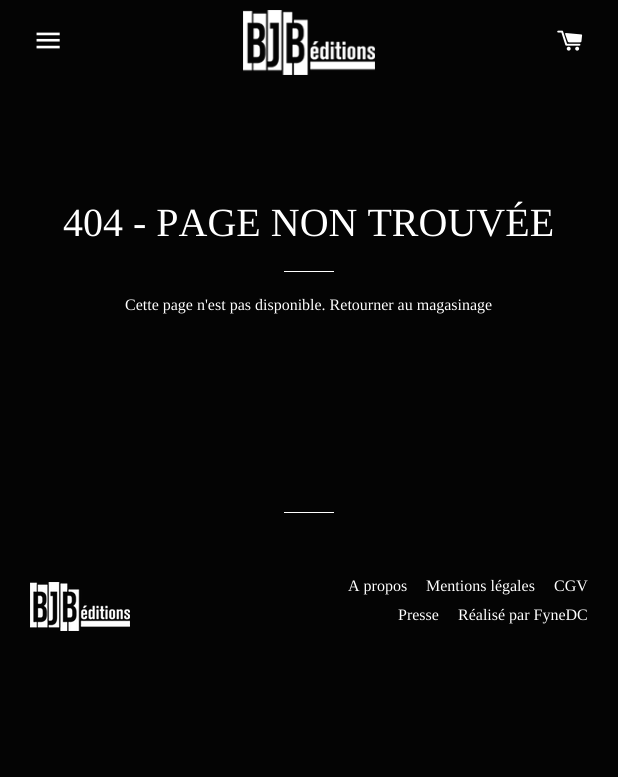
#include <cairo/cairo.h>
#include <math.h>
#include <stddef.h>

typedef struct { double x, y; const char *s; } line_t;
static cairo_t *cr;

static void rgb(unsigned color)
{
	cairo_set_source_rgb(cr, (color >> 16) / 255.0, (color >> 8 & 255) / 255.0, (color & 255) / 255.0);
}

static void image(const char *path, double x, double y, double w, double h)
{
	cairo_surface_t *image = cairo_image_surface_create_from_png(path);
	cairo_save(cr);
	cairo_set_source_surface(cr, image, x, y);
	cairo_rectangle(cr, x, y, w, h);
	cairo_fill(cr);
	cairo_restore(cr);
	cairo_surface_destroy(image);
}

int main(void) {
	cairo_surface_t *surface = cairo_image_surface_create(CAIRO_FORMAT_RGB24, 618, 777);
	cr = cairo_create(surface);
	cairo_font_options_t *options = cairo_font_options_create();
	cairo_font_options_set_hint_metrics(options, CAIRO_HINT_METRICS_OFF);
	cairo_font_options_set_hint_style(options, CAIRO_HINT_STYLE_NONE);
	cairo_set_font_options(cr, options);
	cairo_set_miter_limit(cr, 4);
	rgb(0x040404);
	cairo_paint(cr);
	image("img/1.png", 36, 32, 24, 17);
	image("img/2.png", 243, 10, 132, 65);
	image("img/3.png", 557, 30, 26, 21);
	rgb(0xffffff);
	cairo_rectangle(cr, 284, 271, 50, 1);
	cairo_fill(cr);
	cairo_rectangle(cr, 284, 512, 50, 1);
	cairo_fill(cr);
	image("img/4.png", 30, 582, 100, 49);
	cairo_select_font_face(cr, "Liberation Serif", CAIRO_FONT_SLANT_NORMAL, CAIRO_FONT_WEIGHT_NORMAL);
	cairo_set_font_size(cr, 40);
	cairo_move_to(cr, 63, 236);
	cairo_show_text(cr, "404 - PAGE NON TROUVÉE");
	cairo_set_font_size(cr, 16);
	{
		static const line_t items[] = {
			{125, 310, "Cette page n'est pas disponible. Retourner au magasinage"},
			{348, 591, "A propos"},
			{426, 591, "Mentions légales"},
			{554, 591, "CGV"},
			{398, 620, "Presse"},
			{458, 620, "Réalisé par FyneDC"},
		};
		for (size_t i = 0; i < sizeof items / sizeof *items; i++) {
			cairo_move_to(cr, items[i].x, items[i].y);
			cairo_show_text(cr, items[i].s);
		}
	}
	cairo_surface_write_to_png(surface, "page.png");
	cairo_font_options_destroy(options);
	cairo_destroy(cr);
	cairo_surface_destroy(surface);
	return 0;
}
